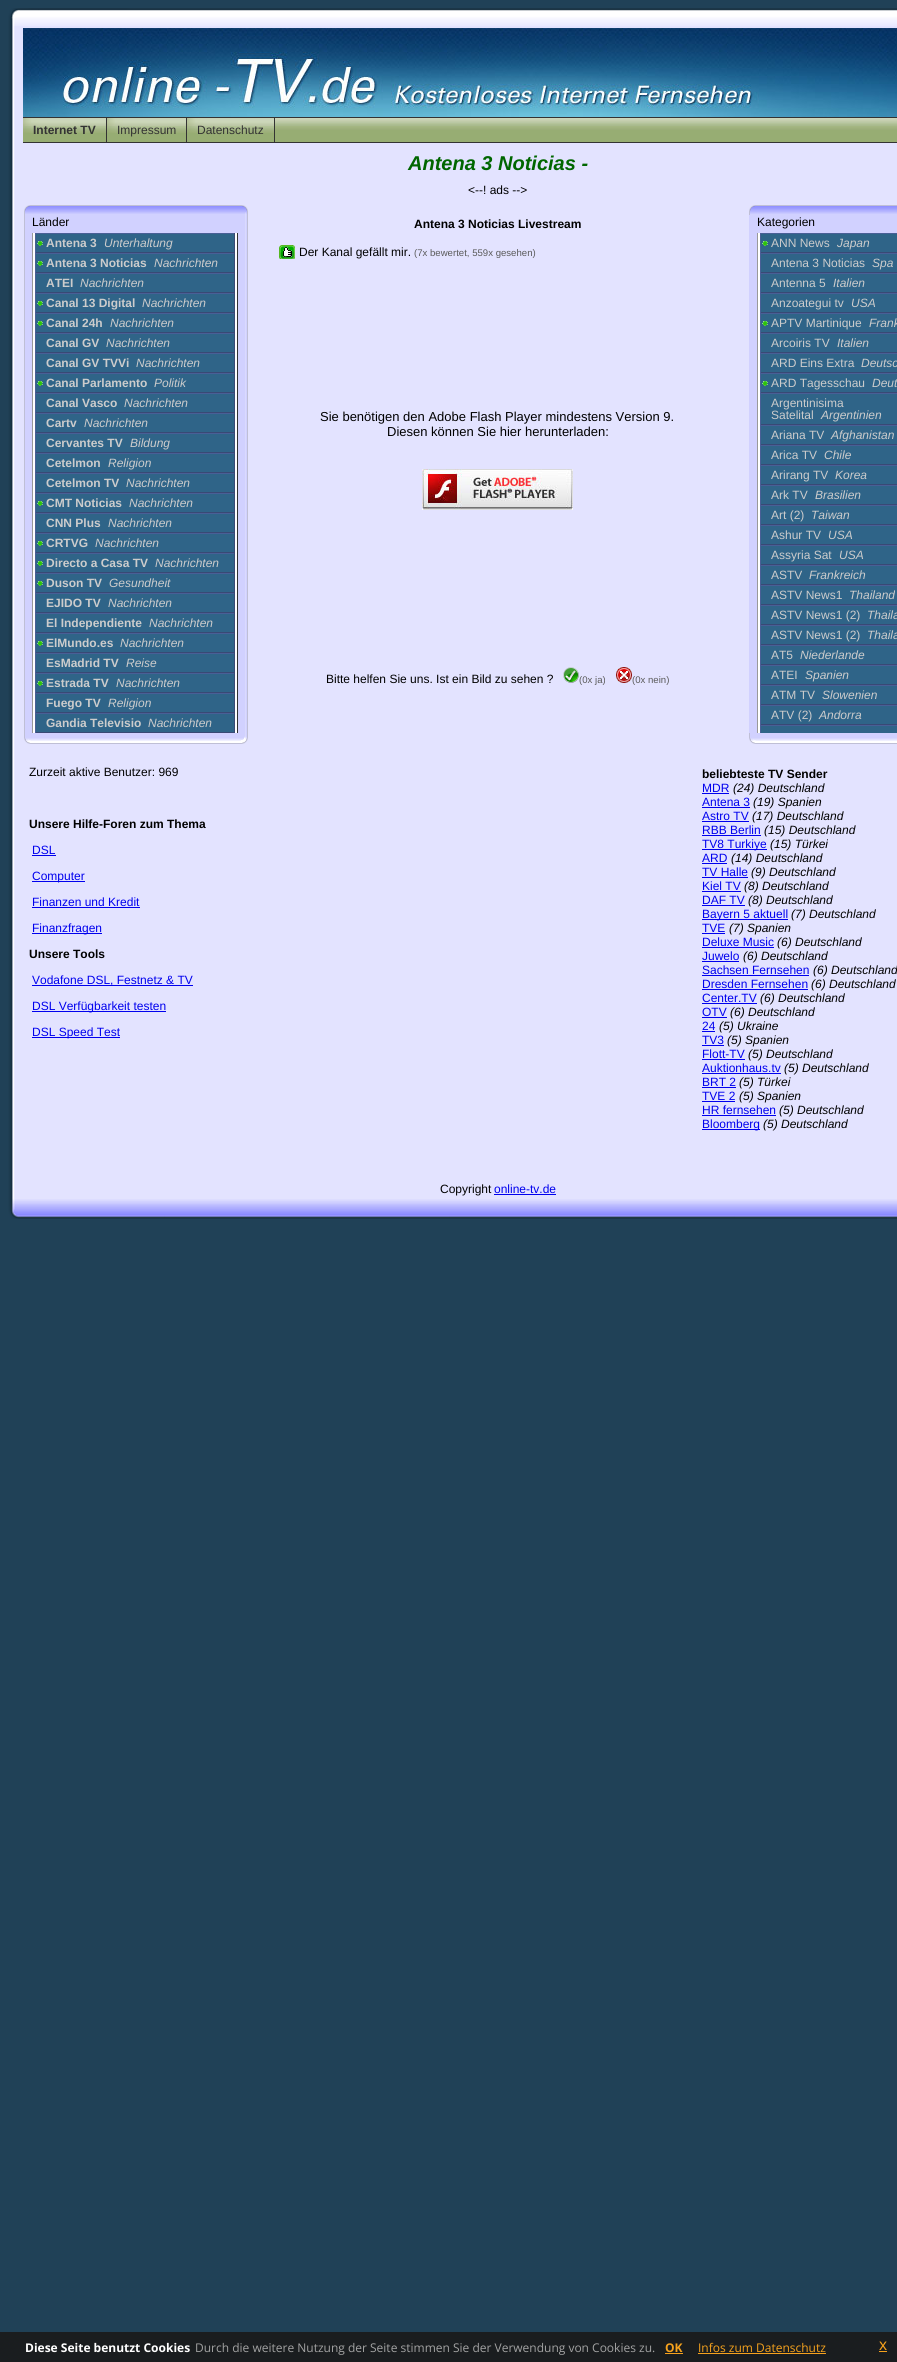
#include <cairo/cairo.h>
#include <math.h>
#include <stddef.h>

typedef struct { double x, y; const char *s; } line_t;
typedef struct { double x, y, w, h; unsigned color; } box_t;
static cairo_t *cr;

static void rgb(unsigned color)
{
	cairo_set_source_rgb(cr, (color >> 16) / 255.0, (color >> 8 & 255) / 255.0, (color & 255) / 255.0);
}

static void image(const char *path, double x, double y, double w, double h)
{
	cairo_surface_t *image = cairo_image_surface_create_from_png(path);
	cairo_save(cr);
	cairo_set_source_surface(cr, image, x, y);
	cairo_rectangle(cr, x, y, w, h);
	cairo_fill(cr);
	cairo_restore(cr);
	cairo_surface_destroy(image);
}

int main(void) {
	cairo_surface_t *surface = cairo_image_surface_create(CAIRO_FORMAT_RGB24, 897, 2362);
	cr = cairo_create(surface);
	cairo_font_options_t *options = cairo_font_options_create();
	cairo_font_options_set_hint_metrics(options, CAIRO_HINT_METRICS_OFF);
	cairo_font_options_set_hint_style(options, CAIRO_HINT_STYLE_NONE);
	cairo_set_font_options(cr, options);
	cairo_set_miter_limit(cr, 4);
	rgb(0x204157);
	cairo_paint(cr);
	image("img/1.png", 8, 8, 889, 20);
	image("img/2.png", 8, 28, 15, 89);
	image("img/3.png", 23, 28, 874, 89);
	image("img/4.png", 8, 117, 15, 26);
	rgb(0x97ad73);
	cairo_rectangle(cr, 275, 130, 622, 12);
	cairo_fill(cr);
	image("img/5.png", 275, 118, 622, 12);
	{
		static const box_t items[] = {
			{23, 117, 874, 1, 0x333333},
			{23, 142, 874, 1, 0x333333},
			{23, 133, 83, 9, 0x97ad73},
		};
		for (size_t i = 0; i < sizeof items / sizeof *items; i++) {
			rgb(items[i].color);
			cairo_rectangle(cr, items[i].x, items[i].y, items[i].w, items[i].h);
			cairo_fill(cr);
		}
	}
	image("img/6.png", 23, 118, 83, 15);
	rgb(0x333333);
	cairo_rectangle(cr, 106, 118, 1, 24);
	cairo_fill(cr);
	rgb(0x97ad73);
	cairo_rectangle(cr, 107, 133, 79, 9);
	cairo_fill(cr);
	image("img/7.png", 107, 118, 79, 15);
	rgb(0x333333);
	cairo_rectangle(cr, 186, 118, 1, 24);
	cairo_fill(cr);
	rgb(0x97ad73);
	cairo_rectangle(cr, 187, 133, 87, 9);
	cairo_fill(cr);
	image("img/8.png", 187, 118, 87, 15);
	rgb(0x333333);
	cairo_rectangle(cr, 274, 118, 1, 24);
	cairo_fill(cr);
	image("img/9.png", 8, 143, 889, 1036);
	image("img/10.png", 24, 205, 224, 10);
	image("img/11.png", 24, 215, 224, 518);
	{
		static const box_t items[] = {
			{237, 233, 1, 500, 0x333333},
			{32, 233, 1, 500, 0x999999},
			{33, 233, 204, 500, 0xffffff},
			{36, 234, 198, 18, 0x2f6488},
		};
		for (size_t i = 0; i < sizeof items / sizeof *items; i++) {
			rgb(items[i].color);
			cairo_rectangle(cr, items[i].x, items[i].y, items[i].w, items[i].h);
			cairo_fill(cr);
		}
	}
	image("img/12.png", 37, 241, 6, 5);
	{
		static const box_t items[] = {
			{35, 233, 200, 1, 0x495f96},
			{234, 233, 1, 20, 0x394975},
			{35, 252, 200, 1, 0x394975},
			{35, 233, 1, 20, 0x495f96},
			{36, 254, 198, 18, 0x2f6488},
		};
		for (size_t i = 0; i < sizeof items / sizeof *items; i++) {
			rgb(items[i].color);
			cairo_rectangle(cr, items[i].x, items[i].y, items[i].w, items[i].h);
			cairo_fill(cr);
		}
	}
	image("img/12.png", 37, 261, 6, 5);
	{
		static const box_t items[] = {
			{35, 253, 200, 1, 0x495f96},
			{234, 253, 1, 20, 0x394975},
			{35, 272, 200, 1, 0x394975},
			{35, 253, 1, 20, 0x495f96},
			{36, 274, 198, 18, 0x2f6488},
			{35, 273, 200, 1, 0x495f96},
			{234, 273, 1, 20, 0x394975},
			{35, 292, 200, 1, 0x394975},
			{35, 273, 1, 20, 0x495f96},
			{36, 294, 198, 18, 0x2f6488},
		};
		for (size_t i = 0; i < sizeof items / sizeof *items; i++) {
			rgb(items[i].color);
			cairo_rectangle(cr, items[i].x, items[i].y, items[i].w, items[i].h);
			cairo_fill(cr);
		}
	}
	image("img/12.png", 37, 301, 6, 5);
	{
		static const box_t items[] = {
			{35, 293, 200, 1, 0x495f96},
			{234, 293, 1, 20, 0x394975},
			{35, 312, 200, 1, 0x394975},
			{35, 293, 1, 20, 0x495f96},
			{36, 314, 198, 18, 0x2f6488},
		};
		for (size_t i = 0; i < sizeof items / sizeof *items; i++) {
			rgb(items[i].color);
			cairo_rectangle(cr, items[i].x, items[i].y, items[i].w, items[i].h);
			cairo_fill(cr);
		}
	}
	image("img/12.png", 37, 321, 6, 5);
	{
		static const box_t items[] = {
			{35, 313, 200, 1, 0x495f96},
			{234, 313, 1, 20, 0x394975},
			{35, 332, 200, 1, 0x394975},
			{35, 313, 1, 20, 0x495f96},
			{36, 334, 198, 18, 0x2f6488},
			{35, 333, 200, 1, 0x495f96},
			{234, 333, 1, 20, 0x394975},
			{35, 352, 200, 1, 0x394975},
			{35, 333, 1, 20, 0x495f96},
			{36, 354, 198, 18, 0x2f6488},
			{35, 353, 200, 1, 0x495f96},
			{234, 353, 1, 20, 0x394975},
			{35, 372, 200, 1, 0x394975},
			{35, 353, 1, 20, 0x495f96},
			{36, 374, 198, 18, 0x2f6488},
		};
		for (size_t i = 0; i < sizeof items / sizeof *items; i++) {
			rgb(items[i].color);
			cairo_rectangle(cr, items[i].x, items[i].y, items[i].w, items[i].h);
			cairo_fill(cr);
		}
	}
	image("img/12.png", 37, 381, 6, 5);
	{
		static const box_t items[] = {
			{35, 373, 200, 1, 0x495f96},
			{234, 373, 1, 20, 0x394975},
			{35, 392, 200, 1, 0x394975},
			{35, 373, 1, 20, 0x495f96},
			{36, 394, 198, 18, 0x2f6488},
			{35, 393, 200, 1, 0x495f96},
			{234, 393, 1, 20, 0x394975},
			{35, 412, 200, 1, 0x394975},
			{35, 393, 1, 20, 0x495f96},
			{36, 414, 198, 18, 0x2f6488},
			{35, 413, 200, 1, 0x495f96},
			{234, 413, 1, 20, 0x394975},
			{35, 432, 200, 1, 0x394975},
			{35, 413, 1, 20, 0x495f96},
			{36, 434, 198, 18, 0x2f6488},
			{35, 433, 200, 1, 0x495f96},
			{234, 433, 1, 20, 0x394975},
			{35, 452, 200, 1, 0x394975},
			{35, 433, 1, 20, 0x495f96},
			{36, 454, 198, 18, 0x2f6488},
			{35, 453, 200, 1, 0x495f96},
			{234, 453, 1, 20, 0x394975},
			{35, 472, 200, 1, 0x394975},
			{35, 453, 1, 20, 0x495f96},
			{36, 474, 198, 18, 0x2f6488},
			{35, 473, 200, 1, 0x495f96},
			{234, 473, 1, 20, 0x394975},
			{35, 492, 200, 1, 0x394975},
			{35, 473, 1, 20, 0x495f96},
			{36, 494, 198, 18, 0x2f6488},
		};
		for (size_t i = 0; i < sizeof items / sizeof *items; i++) {
			rgb(items[i].color);
			cairo_rectangle(cr, items[i].x, items[i].y, items[i].w, items[i].h);
			cairo_fill(cr);
		}
	}
	image("img/12.png", 37, 501, 6, 5);
	{
		static const box_t items[] = {
			{35, 493, 200, 1, 0x495f96},
			{234, 493, 1, 20, 0x394975},
			{35, 512, 200, 1, 0x394975},
			{35, 493, 1, 20, 0x495f96},
			{36, 514, 198, 18, 0x2f6488},
			{35, 513, 200, 1, 0x495f96},
			{234, 513, 1, 20, 0x394975},
			{35, 532, 200, 1, 0x394975},
			{35, 513, 1, 20, 0x495f96},
			{36, 534, 198, 18, 0x2f6488},
		};
		for (size_t i = 0; i < sizeof items / sizeof *items; i++) {
			rgb(items[i].color);
			cairo_rectangle(cr, items[i].x, items[i].y, items[i].w, items[i].h);
			cairo_fill(cr);
		}
	}
	image("img/12.png", 37, 541, 6, 5);
	{
		static const box_t items[] = {
			{35, 533, 200, 1, 0x495f96},
			{234, 533, 1, 20, 0x394975},
			{35, 552, 200, 1, 0x394975},
			{35, 533, 1, 20, 0x495f96},
			{36, 554, 198, 18, 0x2f6488},
		};
		for (size_t i = 0; i < sizeof items / sizeof *items; i++) {
			rgb(items[i].color);
			cairo_rectangle(cr, items[i].x, items[i].y, items[i].w, items[i].h);
			cairo_fill(cr);
		}
	}
	image("img/12.png", 37, 561, 6, 5);
	{
		static const box_t items[] = {
			{35, 553, 200, 1, 0x495f96},
			{234, 553, 1, 20, 0x394975},
			{35, 572, 200, 1, 0x394975},
			{35, 553, 1, 20, 0x495f96},
			{36, 574, 198, 18, 0x2f6488},
		};
		for (size_t i = 0; i < sizeof items / sizeof *items; i++) {
			rgb(items[i].color);
			cairo_rectangle(cr, items[i].x, items[i].y, items[i].w, items[i].h);
			cairo_fill(cr);
		}
	}
	image("img/12.png", 37, 581, 6, 5);
	{
		static const box_t items[] = {
			{35, 573, 200, 1, 0x495f96},
			{234, 573, 1, 20, 0x394975},
			{35, 592, 200, 1, 0x394975},
			{35, 573, 1, 20, 0x495f96},
			{36, 594, 198, 18, 0x2f6488},
			{35, 593, 200, 1, 0x495f96},
			{234, 593, 1, 20, 0x394975},
			{35, 612, 200, 1, 0x394975},
			{35, 593, 1, 20, 0x495f96},
			{36, 614, 198, 18, 0x2f6488},
			{35, 613, 200, 1, 0x495f96},
			{234, 613, 1, 20, 0x394975},
			{35, 632, 200, 1, 0x394975},
			{35, 613, 1, 20, 0x495f96},
			{36, 634, 198, 18, 0x2f6488},
		};
		for (size_t i = 0; i < sizeof items / sizeof *items; i++) {
			rgb(items[i].color);
			cairo_rectangle(cr, items[i].x, items[i].y, items[i].w, items[i].h);
			cairo_fill(cr);
		}
	}
	image("img/12.png", 37, 641, 6, 5);
	{
		static const box_t items[] = {
			{35, 633, 200, 1, 0x495f96},
			{234, 633, 1, 20, 0x394975},
			{35, 652, 200, 1, 0x394975},
			{35, 633, 1, 20, 0x495f96},
			{36, 654, 198, 18, 0x2f6488},
			{35, 653, 200, 1, 0x495f96},
			{234, 653, 1, 20, 0x394975},
			{35, 672, 200, 1, 0x394975},
			{35, 653, 1, 20, 0x495f96},
			{36, 674, 198, 18, 0x2f6488},
		};
		for (size_t i = 0; i < sizeof items / sizeof *items; i++) {
			rgb(items[i].color);
			cairo_rectangle(cr, items[i].x, items[i].y, items[i].w, items[i].h);
			cairo_fill(cr);
		}
	}
	image("img/12.png", 37, 681, 6, 5);
	{
		static const box_t items[] = {
			{35, 673, 200, 1, 0x495f96},
			{234, 673, 1, 20, 0x394975},
			{35, 692, 200, 1, 0x394975},
			{35, 673, 1, 20, 0x495f96},
			{36, 694, 198, 18, 0x2f6488},
			{35, 693, 200, 1, 0x495f96},
			{234, 693, 1, 20, 0x394975},
			{35, 712, 200, 1, 0x394975},
			{35, 693, 1, 20, 0x495f96},
			{36, 714, 198, 18, 0x2f6488},
			{35, 713, 200, 1, 0x495f96},
			{234, 713, 1, 20, 0x394975},
			{35, 732, 200, 1, 0x394975},
			{35, 713, 1, 20, 0x495f96},
		};
		for (size_t i = 0; i < sizeof items / sizeof *items; i++) {
			rgb(items[i].color);
			cairo_rectangle(cr, items[i].x, items[i].y, items[i].w, items[i].h);
			cairo_fill(cr);
		}
	}
	image("img/13.png", 24, 733, 224, 11);
	image("img/14.png", 279, 245, 16, 14);
	image("img/15.png", 422, 469, 151, 41);
	image("img/16.png", 563, 667, 16, 16);
	image("img/17.png", 616, 667, 16, 16);
	image("img/18.png", 749, 205, 148, 10);
	{
		static const box_t items[] = {
			{749, 215, 148, 518, 0xd1d1ff},
			{757, 233, 1, 500, 0x999999},
			{758, 233, 2, 500, 0xffffff},
			{761, 234, 136, 18, 0x2f6488},
		};
		for (size_t i = 0; i < sizeof items / sizeof *items; i++) {
			rgb(items[i].color);
			cairo_rectangle(cr, items[i].x, items[i].y, items[i].w, items[i].h);
			cairo_fill(cr);
		}
	}
	image("img/12.png", 762, 241, 6, 5);
	{
		static const box_t items[] = {
			{760, 233, 137, 1, 0x495f96},
			{760, 252, 137, 1, 0x394975},
			{760, 233, 1, 20, 0x495f96},
			{761, 254, 136, 18, 0x2f6488},
			{760, 253, 137, 1, 0x495f96},
			{760, 272, 137, 1, 0x394975},
			{760, 253, 1, 20, 0x495f96},
			{761, 274, 136, 18, 0x2f6488},
			{760, 273, 137, 1, 0x495f96},
			{760, 292, 137, 1, 0x394975},
			{760, 273, 1, 20, 0x495f96},
			{761, 294, 136, 18, 0x2f6488},
			{760, 293, 137, 1, 0x495f96},
			{760, 312, 137, 1, 0x394975},
			{760, 293, 1, 20, 0x495f96},
			{761, 314, 136, 18, 0x2f6488},
		};
		for (size_t i = 0; i < sizeof items / sizeof *items; i++) {
			rgb(items[i].color);
			cairo_rectangle(cr, items[i].x, items[i].y, items[i].w, items[i].h);
			cairo_fill(cr);
		}
	}
	image("img/12.png", 762, 321, 6, 5);
	{
		static const box_t items[] = {
			{760, 313, 137, 1, 0x495f96},
			{760, 332, 137, 1, 0x394975},
			{760, 313, 1, 20, 0x495f96},
			{761, 334, 136, 18, 0x2f6488},
			{760, 333, 137, 1, 0x495f96},
			{760, 352, 137, 1, 0x394975},
			{760, 333, 1, 20, 0x495f96},
			{761, 354, 136, 18, 0x2f6488},
			{760, 353, 137, 1, 0x495f96},
			{760, 372, 137, 1, 0x394975},
			{760, 353, 1, 20, 0x495f96},
			{761, 374, 136, 18, 0x2f6488},
		};
		for (size_t i = 0; i < sizeof items / sizeof *items; i++) {
			rgb(items[i].color);
			cairo_rectangle(cr, items[i].x, items[i].y, items[i].w, items[i].h);
			cairo_fill(cr);
		}
	}
	image("img/12.png", 762, 381, 6, 5);
	{
		static const box_t items[] = {
			{760, 373, 137, 1, 0x495f96},
			{760, 392, 137, 1, 0x394975},
			{760, 373, 1, 20, 0x495f96},
			{761, 394, 136, 30, 0x2f6488},
			{760, 393, 137, 1, 0x495f96},
			{760, 424, 137, 1, 0x394975},
			{760, 393, 1, 32, 0x495f96},
			{761, 426, 136, 18, 0x2f6488},
			{760, 425, 137, 1, 0x495f96},
			{760, 444, 137, 1, 0x394975},
			{760, 425, 1, 20, 0x495f96},
			{761, 446, 136, 18, 0x2f6488},
			{760, 445, 137, 1, 0x495f96},
			{760, 464, 137, 1, 0x394975},
			{760, 445, 1, 20, 0x495f96},
			{761, 466, 136, 18, 0x2f6488},
			{760, 465, 137, 1, 0x495f96},
			{760, 484, 137, 1, 0x394975},
			{760, 465, 1, 20, 0x495f96},
			{761, 486, 136, 18, 0x2f6488},
			{760, 485, 137, 1, 0x495f96},
			{760, 504, 137, 1, 0x394975},
			{760, 485, 1, 20, 0x495f96},
			{761, 506, 136, 18, 0x2f6488},
			{760, 505, 137, 1, 0x495f96},
			{760, 524, 137, 1, 0x394975},
			{760, 505, 1, 20, 0x495f96},
			{761, 526, 136, 18, 0x2f6488},
			{760, 525, 137, 1, 0x495f96},
			{760, 544, 137, 1, 0x394975},
			{760, 525, 1, 20, 0x495f96},
			{761, 546, 136, 18, 0x2f6488},
			{760, 545, 137, 1, 0x495f96},
			{760, 564, 137, 1, 0x394975},
			{760, 545, 1, 20, 0x495f96},
			{761, 566, 136, 18, 0x2f6488},
			{760, 565, 137, 1, 0x495f96},
			{760, 584, 137, 1, 0x394975},
			{760, 565, 1, 20, 0x495f96},
			{761, 586, 136, 18, 0x2f6488},
			{760, 585, 137, 1, 0x495f96},
			{760, 604, 137, 1, 0x394975},
			{760, 585, 1, 20, 0x495f96},
			{761, 606, 136, 18, 0x2f6488},
			{760, 605, 137, 1, 0x495f96},
			{760, 624, 137, 1, 0x394975},
			{760, 605, 1, 20, 0x495f96},
			{761, 626, 136, 18, 0x2f6488},
			{760, 625, 137, 1, 0x495f96},
			{760, 644, 137, 1, 0x394975},
			{760, 625, 1, 20, 0x495f96},
			{761, 646, 136, 18, 0x2f6488},
			{760, 645, 137, 1, 0x495f96},
			{760, 664, 137, 1, 0x394975},
			{760, 645, 1, 20, 0x495f96},
			{761, 666, 136, 18, 0x2f6488},
			{760, 665, 137, 1, 0x495f96},
			{760, 684, 137, 1, 0x394975},
			{760, 665, 1, 20, 0x495f96},
			{761, 686, 136, 18, 0x2f6488},
			{760, 685, 137, 1, 0x495f96},
			{760, 704, 137, 1, 0x394975},
			{760, 685, 1, 20, 0x495f96},
			{761, 706, 136, 18, 0x2f6488},
			{760, 705, 137, 1, 0x495f96},
			{760, 724, 137, 1, 0x394975},
			{760, 705, 1, 20, 0x495f96},
			{760, 726, 137, 7, 0x2f6488},
			{760, 725, 137, 1, 0x495f96},
			{760, 725, 1, 8, 0x495f96},
		};
		for (size_t i = 0; i < sizeof items / sizeof *items; i++) {
			rgb(items[i].color);
			cairo_rectangle(cr, items[i].x, items[i].y, items[i].w, items[i].h);
			cairo_fill(cr);
		}
	}
	image("img/19.png", 749, 733, 148, 11);
	{
		static const box_t items[] = {
			{32, 855, 24, 1, 0x0000ee},
			{32, 881, 53, 1, 0x0000ee},
			{32, 907, 108, 1, 0x0000ee},
			{32, 933, 70, 1, 0x0000ee},
			{32, 985, 161, 1, 0x0000ee},
			{32, 1011, 134, 1, 0x0000ee},
			{32, 1037, 88, 1, 0x0000ee},
			{702, 793, 27, 1, 0x0000ee},
			{702, 807, 48, 1, 0x0000ee},
			{702, 821, 47, 1, 0x0000ee},
			{702, 835, 59, 1, 0x0000ee},
			{702, 849, 65, 1, 0x0000ee},
			{702, 863, 25, 1, 0x0000ee},
			{702, 877, 46, 1, 0x0000ee},
			{702, 891, 39, 1, 0x0000ee},
			{702, 905, 43, 1, 0x0000ee},
			{702, 919, 86, 1, 0x0000ee},
			{702, 933, 23, 1, 0x0000ee},
			{702, 947, 72, 1, 0x0000ee},
			{702, 961, 37, 1, 0x0000ee},
			{702, 975, 107, 1, 0x0000ee},
			{702, 989, 106, 1, 0x0000ee},
			{702, 1003, 55, 1, 0x0000ee},
			{702, 1017, 25, 1, 0x0000ee},
			{702, 1031, 13, 1, 0x0000ee},
			{702, 1045, 22, 1, 0x0000ee},
			{702, 1059, 43, 1, 0x0000ee},
			{702, 1073, 79, 1, 0x0000ee},
			{702, 1087, 34, 1, 0x0000ee},
			{702, 1101, 33, 1, 0x0000ee},
			{702, 1115, 74, 1, 0x0000ee},
			{702, 1129, 58, 1, 0x0000ee},
		};
		for (size_t i = 0; i < sizeof items / sizeof *items; i++) {
			rgb(items[i].color);
			cairo_rectangle(cr, items[i].x, items[i].y, items[i].w, items[i].h);
			cairo_fill(cr);
		}
	}
	image("img/20.png", 8, 1179, 889, 20);
	cairo_rectangle(cr, 494, 1194, 62, 1);
	cairo_fill(cr);
	image("img/21.png", 8, 1199, 889, 20);
	{
		static const box_t items[] = {
			{0, 2332, 897, 30, 0x1a1d1f},
			{665, 2353, 18, 1, 0xf6a21d},
			{698, 2353, 128, 1, 0xf6a21d},
			{879, 2351, 8, 1, 0xf6a21d},
		};
		for (size_t i = 0; i < sizeof items / sizeof *items; i++) {
			rgb(items[i].color);
			cairo_rectangle(cr, items[i].x, items[i].y, items[i].w, items[i].h);
			cairo_fill(cr);
		}
	}
	cairo_select_font_face(cr, "Liberation Sans", CAIRO_FONT_SLANT_NORMAL, CAIRO_FONT_WEIGHT_BOLD);
	cairo_set_font_size(cr, 12);
	rgb(0x333333);
	cairo_move_to(cr, 33, 134);
	cairo_show_text(cr, "Internet TV");
	cairo_select_font_face(cr, "Liberation Sans", CAIRO_FONT_SLANT_NORMAL, CAIRO_FONT_WEIGHT_NORMAL);
	cairo_move_to(cr, 117, 134);
	cairo_show_text(cr, "Impressum");
	cairo_move_to(cr, 197, 134);
	cairo_show_text(cr, "Datenschutz");
	cairo_select_font_face(cr, "Liberation Sans", CAIRO_FONT_SLANT_ITALIC, CAIRO_FONT_WEIGHT_BOLD);
	cairo_set_font_size(cr, 20);
	rgb(0x006600);
	cairo_move_to(cr, 408, 170);
	cairo_show_text(cr, "Antena 3 Noticias -");
	cairo_select_font_face(cr, "Liberation Sans", CAIRO_FONT_SLANT_NORMAL, CAIRO_FONT_WEIGHT_NORMAL);
	cairo_set_font_size(cr, 12);
	rgb(0x000000);
	cairo_move_to(cr, 468, 194);
	cairo_show_text(cr, "<--! ads -->");
	cairo_move_to(cr, 32, 226);
	cairo_show_text(cr, "Länder");
	cairo_select_font_face(cr, "Liberation Sans", CAIRO_FONT_SLANT_NORMAL, CAIRO_FONT_WEIGHT_BOLD);
	rgb(0xcccccc);
	cairo_move_to(cr, 46, 247);
	cairo_show_text(cr, "Antena 3");
	cairo_select_font_face(cr, "Liberation Sans", CAIRO_FONT_SLANT_ITALIC, CAIRO_FONT_WEIGHT_NORMAL);
	cairo_move_to(cr, 104, 247);
	cairo_show_text(cr, "Unterhaltung");
	cairo_select_font_face(cr, "Liberation Sans", CAIRO_FONT_SLANT_NORMAL, CAIRO_FONT_WEIGHT_BOLD);
	cairo_move_to(cr, 46, 267);
	cairo_show_text(cr, "Antena 3 Noticias");
	cairo_select_font_face(cr, "Liberation Sans", CAIRO_FONT_SLANT_ITALIC, CAIRO_FONT_WEIGHT_NORMAL);
	cairo_move_to(cr, 154, 267);
	cairo_show_text(cr, "Nachrichten");
	cairo_select_font_face(cr, "Liberation Sans", CAIRO_FONT_SLANT_NORMAL, CAIRO_FONT_WEIGHT_BOLD);
	cairo_move_to(cr, 46, 287);
	cairo_show_text(cr, "ATEI");
	cairo_select_font_face(cr, "Liberation Sans", CAIRO_FONT_SLANT_ITALIC, CAIRO_FONT_WEIGHT_NORMAL);
	cairo_move_to(cr, 80, 287);
	cairo_show_text(cr, "Nachrichten");
	cairo_select_font_face(cr, "Liberation Sans", CAIRO_FONT_SLANT_NORMAL, CAIRO_FONT_WEIGHT_BOLD);
	cairo_move_to(cr, 46, 307);
	cairo_show_text(cr, "Canal 13 Digital");
	cairo_select_font_face(cr, "Liberation Sans", CAIRO_FONT_SLANT_ITALIC, CAIRO_FONT_WEIGHT_NORMAL);
	cairo_move_to(cr, 142, 307);
	cairo_show_text(cr, "Nachrichten");
	cairo_select_font_face(cr, "Liberation Sans", CAIRO_FONT_SLANT_NORMAL, CAIRO_FONT_WEIGHT_BOLD);
	cairo_move_to(cr, 46, 327);
	cairo_show_text(cr, "Canal 24h");
	cairo_select_font_face(cr, "Liberation Sans", CAIRO_FONT_SLANT_ITALIC, CAIRO_FONT_WEIGHT_NORMAL);
	cairo_move_to(cr, 110, 327);
	cairo_show_text(cr, "Nachrichten");
	cairo_select_font_face(cr, "Liberation Sans", CAIRO_FONT_SLANT_NORMAL, CAIRO_FONT_WEIGHT_BOLD);
	cairo_move_to(cr, 46, 347);
	cairo_show_text(cr, "Canal GV");
	cairo_select_font_face(cr, "Liberation Sans", CAIRO_FONT_SLANT_ITALIC, CAIRO_FONT_WEIGHT_NORMAL);
	cairo_move_to(cr, 106, 347);
	cairo_show_text(cr, "Nachrichten");
	cairo_select_font_face(cr, "Liberation Sans", CAIRO_FONT_SLANT_NORMAL, CAIRO_FONT_WEIGHT_BOLD);
	cairo_move_to(cr, 46, 367);
	cairo_show_text(cr, "Canal GV TVVi");
	cairo_select_font_face(cr, "Liberation Sans", CAIRO_FONT_SLANT_ITALIC, CAIRO_FONT_WEIGHT_NORMAL);
	cairo_move_to(cr, 136, 367);
	cairo_show_text(cr, "Nachrichten");
	cairo_select_font_face(cr, "Liberation Sans", CAIRO_FONT_SLANT_NORMAL, CAIRO_FONT_WEIGHT_BOLD);
	cairo_move_to(cr, 46, 387);
	cairo_show_text(cr, "Canal Parlamento");
	cairo_select_font_face(cr, "Liberation Sans", CAIRO_FONT_SLANT_ITALIC, CAIRO_FONT_WEIGHT_NORMAL);
	cairo_move_to(cr, 154, 387);
	cairo_show_text(cr, "Politik");
	cairo_select_font_face(cr, "Liberation Sans", CAIRO_FONT_SLANT_NORMAL, CAIRO_FONT_WEIGHT_BOLD);
	cairo_move_to(cr, 46, 407);
	cairo_show_text(cr, "Canal Vasco");
	cairo_select_font_face(cr, "Liberation Sans", CAIRO_FONT_SLANT_ITALIC, CAIRO_FONT_WEIGHT_NORMAL);
	cairo_move_to(cr, 124, 407);
	cairo_show_text(cr, "Nachrichten");
	cairo_select_font_face(cr, "Liberation Sans", CAIRO_FONT_SLANT_NORMAL, CAIRO_FONT_WEIGHT_BOLD);
	cairo_move_to(cr, 46, 427);
	cairo_show_text(cr, "Cartv");
	cairo_select_font_face(cr, "Liberation Sans", CAIRO_FONT_SLANT_ITALIC, CAIRO_FONT_WEIGHT_NORMAL);
	cairo_move_to(cr, 84, 427);
	cairo_show_text(cr, "Nachrichten");
	cairo_select_font_face(cr, "Liberation Sans", CAIRO_FONT_SLANT_NORMAL, CAIRO_FONT_WEIGHT_BOLD);
	cairo_move_to(cr, 46, 447);
	cairo_show_text(cr, "Cervantes TV");
	cairo_select_font_face(cr, "Liberation Sans", CAIRO_FONT_SLANT_ITALIC, CAIRO_FONT_WEIGHT_NORMAL);
	cairo_move_to(cr, 130, 447);
	cairo_show_text(cr, "Bildung");
	cairo_select_font_face(cr, "Liberation Sans", CAIRO_FONT_SLANT_NORMAL, CAIRO_FONT_WEIGHT_BOLD);
	cairo_move_to(cr, 46, 467);
	cairo_show_text(cr, "Cetelmon");
	cairo_select_font_face(cr, "Liberation Sans", CAIRO_FONT_SLANT_ITALIC, CAIRO_FONT_WEIGHT_NORMAL);
	cairo_move_to(cr, 108, 467);
	cairo_show_text(cr, "Religion");
	cairo_select_font_face(cr, "Liberation Sans", CAIRO_FONT_SLANT_NORMAL, CAIRO_FONT_WEIGHT_BOLD);
	cairo_move_to(cr, 46, 487);
	cairo_show_text(cr, "Cetelmon TV");
	cairo_select_font_face(cr, "Liberation Sans", CAIRO_FONT_SLANT_ITALIC, CAIRO_FONT_WEIGHT_NORMAL);
	cairo_move_to(cr, 126, 487);
	cairo_show_text(cr, "Nachrichten");
	cairo_select_font_face(cr, "Liberation Sans", CAIRO_FONT_SLANT_NORMAL, CAIRO_FONT_WEIGHT_BOLD);
	cairo_move_to(cr, 46, 507);
	cairo_show_text(cr, "CMT Noticias");
	cairo_select_font_face(cr, "Liberation Sans", CAIRO_FONT_SLANT_ITALIC, CAIRO_FONT_WEIGHT_NORMAL);
	cairo_move_to(cr, 129, 507);
	cairo_show_text(cr, "Nachrichten");
	cairo_select_font_face(cr, "Liberation Sans", CAIRO_FONT_SLANT_NORMAL, CAIRO_FONT_WEIGHT_BOLD);
	cairo_move_to(cr, 46, 527);
	cairo_show_text(cr, "CNN Plus");
	cairo_select_font_face(cr, "Liberation Sans", CAIRO_FONT_SLANT_ITALIC, CAIRO_FONT_WEIGHT_NORMAL);
	cairo_move_to(cr, 108, 527);
	cairo_show_text(cr, "Nachrichten");
	cairo_select_font_face(cr, "Liberation Sans", CAIRO_FONT_SLANT_NORMAL, CAIRO_FONT_WEIGHT_BOLD);
	cairo_move_to(cr, 46, 547);
	cairo_show_text(cr, "CRTVG");
	cairo_select_font_face(cr, "Liberation Sans", CAIRO_FONT_SLANT_ITALIC, CAIRO_FONT_WEIGHT_NORMAL);
	cairo_move_to(cr, 95, 547);
	cairo_show_text(cr, "Nachrichten");
	cairo_select_font_face(cr, "Liberation Sans", CAIRO_FONT_SLANT_NORMAL, CAIRO_FONT_WEIGHT_BOLD);
	cairo_move_to(cr, 46, 567);
	cairo_show_text(cr, "Directo a Casa TV");
	cairo_select_font_face(cr, "Liberation Sans", CAIRO_FONT_SLANT_ITALIC, CAIRO_FONT_WEIGHT_NORMAL);
	cairo_move_to(cr, 155, 567);
	cairo_show_text(cr, "Nachrichten");
	cairo_select_font_face(cr, "Liberation Sans", CAIRO_FONT_SLANT_NORMAL, CAIRO_FONT_WEIGHT_BOLD);
	cairo_move_to(cr, 46, 587);
	cairo_show_text(cr, "Duson TV");
	cairo_select_font_face(cr, "Liberation Sans", CAIRO_FONT_SLANT_ITALIC, CAIRO_FONT_WEIGHT_NORMAL);
	cairo_move_to(cr, 109, 587);
	cairo_show_text(cr, "Gesundheit");
	cairo_select_font_face(cr, "Liberation Sans", CAIRO_FONT_SLANT_NORMAL, CAIRO_FONT_WEIGHT_BOLD);
	cairo_move_to(cr, 46, 607);
	cairo_show_text(cr, "EJIDO TV");
	cairo_select_font_face(cr, "Liberation Sans", CAIRO_FONT_SLANT_ITALIC, CAIRO_FONT_WEIGHT_NORMAL);
	cairo_move_to(cr, 108, 607);
	cairo_show_text(cr, "Nachrichten");
	cairo_select_font_face(cr, "Liberation Sans", CAIRO_FONT_SLANT_NORMAL, CAIRO_FONT_WEIGHT_BOLD);
	cairo_move_to(cr, 46, 627);
	cairo_show_text(cr, "El Independiente");
	cairo_select_font_face(cr, "Liberation Sans", CAIRO_FONT_SLANT_ITALIC, CAIRO_FONT_WEIGHT_NORMAL);
	cairo_move_to(cr, 149, 627);
	cairo_show_text(cr, "Nachrichten");
	cairo_select_font_face(cr, "Liberation Sans", CAIRO_FONT_SLANT_NORMAL, CAIRO_FONT_WEIGHT_BOLD);
	cairo_move_to(cr, 46, 647);
	cairo_show_text(cr, "ElMundo.es");
	cairo_select_font_face(cr, "Liberation Sans", CAIRO_FONT_SLANT_ITALIC, CAIRO_FONT_WEIGHT_NORMAL);
	cairo_move_to(cr, 120, 647);
	cairo_show_text(cr, "Nachrichten");
	cairo_select_font_face(cr, "Liberation Sans", CAIRO_FONT_SLANT_NORMAL, CAIRO_FONT_WEIGHT_BOLD);
	cairo_move_to(cr, 46, 667);
	cairo_show_text(cr, "EsMadrid TV");
	cairo_select_font_face(cr, "Liberation Sans", CAIRO_FONT_SLANT_ITALIC, CAIRO_FONT_WEIGHT_NORMAL);
	cairo_move_to(cr, 126, 667);
	cairo_show_text(cr, "Reise");
	cairo_select_font_face(cr, "Liberation Sans", CAIRO_FONT_SLANT_NORMAL, CAIRO_FONT_WEIGHT_BOLD);
	cairo_move_to(cr, 46, 687);
	cairo_show_text(cr, "Estrada TV");
	cairo_select_font_face(cr, "Liberation Sans", CAIRO_FONT_SLANT_ITALIC, CAIRO_FONT_WEIGHT_NORMAL);
	cairo_move_to(cr, 116, 687);
	cairo_show_text(cr, "Nachrichten");
	cairo_select_font_face(cr, "Liberation Sans", CAIRO_FONT_SLANT_NORMAL, CAIRO_FONT_WEIGHT_BOLD);
	cairo_move_to(cr, 46, 707);
	cairo_show_text(cr, "Fuego TV");
	cairo_select_font_face(cr, "Liberation Sans", CAIRO_FONT_SLANT_ITALIC, CAIRO_FONT_WEIGHT_NORMAL);
	cairo_move_to(cr, 108, 707);
	cairo_show_text(cr, "Religion");
	cairo_select_font_face(cr, "Liberation Sans", CAIRO_FONT_SLANT_NORMAL, CAIRO_FONT_WEIGHT_BOLD);
	cairo_move_to(cr, 46, 727);
	cairo_show_text(cr, "Gandia Televisio");
	cairo_select_font_face(cr, "Liberation Sans", CAIRO_FONT_SLANT_ITALIC, CAIRO_FONT_WEIGHT_NORMAL);
	cairo_move_to(cr, 148, 727);
	cairo_show_text(cr, "Nachrichten");
	cairo_select_font_face(cr, "Liberation Sans", CAIRO_FONT_SLANT_NORMAL, CAIRO_FONT_WEIGHT_BOLD);
	rgb(0x000000);
	cairo_move_to(cr, 414, 228);
	cairo_show_text(cr, "Antena 3 Noticias Livestream");
	cairo_select_font_face(cr, "Liberation Sans", CAIRO_FONT_SLANT_NORMAL, CAIRO_FONT_WEIGHT_NORMAL);
	cairo_move_to(cr, 299, 256);
	cairo_show_text(cr, "Der Kanal gefällt mir.");
	cairo_set_font_size(cr, 9.6);
	rgb(0x5a5a5a);
	cairo_move_to(cr, 414, 256);
	cairo_show_text(cr, "(7x bewertet, 559x gesehen)");
	cairo_set_font_size(cr, 13);
	rgb(0x000000);
	cairo_move_to(cr, 320, 421);
	cairo_show_text(cr, "Sie benötigen den Adobe Flash Player mindestens Version 9.");
	cairo_move_to(cr, 387, 436);
	cairo_show_text(cr, "Diesen können Sie hier herunterladen:");
	cairo_set_font_size(cr, 12);
	cairo_move_to(cr, 326, 683);
	cairo_show_text(cr, "Bitte helfen Sie uns. Ist ein Bild zu sehen ?");
	cairo_set_font_size(cr, 9.6);
	rgb(0x5a5a5a);
	cairo_move_to(cr, 579, 683);
	cairo_show_text(cr, "(0x ja)");
	cairo_move_to(cr, 632, 683);
	cairo_show_text(cr, "(0x nein)");
	cairo_set_font_size(cr, 12);
	rgb(0x000000);
	cairo_move_to(cr, 757, 226);
	cairo_show_text(cr, "Kategorien");
	rgb(0xcccccc);
	cairo_move_to(cr, 771, 247);
	cairo_show_text(cr, "ANN News");
	cairo_select_font_face(cr, "Liberation Sans", CAIRO_FONT_SLANT_ITALIC, CAIRO_FONT_WEIGHT_NORMAL);
	cairo_move_to(cr, 837, 247);
	cairo_show_text(cr, "Japan");
	cairo_select_font_face(cr, "Liberation Sans", CAIRO_FONT_SLANT_NORMAL, CAIRO_FONT_WEIGHT_NORMAL);
	cairo_move_to(cr, 771, 267);
	cairo_show_text(cr, "Antena 3 Noticias");
	cairo_select_font_face(cr, "Liberation Sans", CAIRO_FONT_SLANT_ITALIC, CAIRO_FONT_WEIGHT_NORMAL);
	cairo_move_to(cr, 872, 267);
	cairo_show_text(cr, "Spa");
	cairo_select_font_face(cr, "Liberation Sans", CAIRO_FONT_SLANT_NORMAL, CAIRO_FONT_WEIGHT_NORMAL);
	cairo_move_to(cr, 771, 287);
	cairo_show_text(cr, "Antenna 5");
	cairo_select_font_face(cr, "Liberation Sans", CAIRO_FONT_SLANT_ITALIC, CAIRO_FONT_WEIGHT_NORMAL);
	cairo_move_to(cr, 833, 287);
	cairo_show_text(cr, "Italien");
	cairo_select_font_face(cr, "Liberation Sans", CAIRO_FONT_SLANT_NORMAL, CAIRO_FONT_WEIGHT_NORMAL);
	cairo_move_to(cr, 771, 307);
	cairo_show_text(cr, "Anzoategui tv");
	cairo_select_font_face(cr, "Liberation Sans", CAIRO_FONT_SLANT_ITALIC, CAIRO_FONT_WEIGHT_NORMAL);
	cairo_move_to(cr, 851, 307);
	cairo_show_text(cr, "USA");
	cairo_select_font_face(cr, "Liberation Sans", CAIRO_FONT_SLANT_NORMAL, CAIRO_FONT_WEIGHT_NORMAL);
	cairo_move_to(cr, 771, 327);
	cairo_show_text(cr, "APTV Martinique");
	cairo_select_font_face(cr, "Liberation Sans", CAIRO_FONT_SLANT_ITALIC, CAIRO_FONT_WEIGHT_NORMAL);
	cairo_move_to(cr, 869, 327);
	cairo_show_text(cr, "Frank");
	cairo_select_font_face(cr, "Liberation Sans", CAIRO_FONT_SLANT_NORMAL, CAIRO_FONT_WEIGHT_NORMAL);
	cairo_move_to(cr, 771, 347);
	cairo_show_text(cr, "Arcoiris TV");
	cairo_select_font_face(cr, "Liberation Sans", CAIRO_FONT_SLANT_ITALIC, CAIRO_FONT_WEIGHT_NORMAL);
	cairo_move_to(cr, 837, 347);
	cairo_show_text(cr, "Italien");
	cairo_select_font_face(cr, "Liberation Sans", CAIRO_FONT_SLANT_NORMAL, CAIRO_FONT_WEIGHT_NORMAL);
	cairo_move_to(cr, 771, 367);
	cairo_show_text(cr, "ARD Eins Extra");
	cairo_select_font_face(cr, "Liberation Sans", CAIRO_FONT_SLANT_ITALIC, CAIRO_FONT_WEIGHT_NORMAL);
	cairo_move_to(cr, 861, 367);
	cairo_show_text(cr, "Deutsc");
	cairo_select_font_face(cr, "Liberation Sans", CAIRO_FONT_SLANT_NORMAL, CAIRO_FONT_WEIGHT_NORMAL);
	cairo_move_to(cr, 771, 387);
	cairo_show_text(cr, "ARD Tagesschau");
	cairo_select_font_face(cr, "Liberation Sans", CAIRO_FONT_SLANT_ITALIC, CAIRO_FONT_WEIGHT_NORMAL);
	cairo_move_to(cr, 872, 387);
	cairo_show_text(cr, "Deut");
	cairo_select_font_face(cr, "Liberation Sans", CAIRO_FONT_SLANT_NORMAL, CAIRO_FONT_WEIGHT_NORMAL);
	cairo_move_to(cr, 771, 407);
	cairo_show_text(cr, "Argentinisima");
	cairo_move_to(cr, 771, 419);
	cairo_show_text(cr, "Satelital");
	cairo_select_font_face(cr, "Liberation Sans", CAIRO_FONT_SLANT_ITALIC, CAIRO_FONT_WEIGHT_NORMAL);
	cairo_move_to(cr, 821, 419);
	cairo_show_text(cr, "Argentinien");
	cairo_select_font_face(cr, "Liberation Sans", CAIRO_FONT_SLANT_NORMAL, CAIRO_FONT_WEIGHT_NORMAL);
	cairo_move_to(cr, 771, 439);
	cairo_show_text(cr, "Ariana TV");
	cairo_select_font_face(cr, "Liberation Sans", CAIRO_FONT_SLANT_ITALIC, CAIRO_FONT_WEIGHT_NORMAL);
	cairo_move_to(cr, 831, 439);
	cairo_show_text(cr, "Afghanistan");
	cairo_select_font_face(cr, "Liberation Sans", CAIRO_FONT_SLANT_NORMAL, CAIRO_FONT_WEIGHT_NORMAL);
	cairo_move_to(cr, 771, 459);
	cairo_show_text(cr, "Arica TV");
	cairo_select_font_face(cr, "Liberation Sans", CAIRO_FONT_SLANT_ITALIC, CAIRO_FONT_WEIGHT_NORMAL);
	cairo_move_to(cr, 824, 459);
	cairo_show_text(cr, "Chile");
	cairo_select_font_face(cr, "Liberation Sans", CAIRO_FONT_SLANT_NORMAL, CAIRO_FONT_WEIGHT_NORMAL);
	cairo_move_to(cr, 771, 479);
	cairo_show_text(cr, "Arirang TV");
	cairo_select_font_face(cr, "Liberation Sans", CAIRO_FONT_SLANT_ITALIC, CAIRO_FONT_WEIGHT_NORMAL);
	cairo_move_to(cr, 835, 479);
	cairo_show_text(cr, "Korea");
	cairo_select_font_face(cr, "Liberation Sans", CAIRO_FONT_SLANT_NORMAL, CAIRO_FONT_WEIGHT_NORMAL);
	cairo_move_to(cr, 771, 499);
	cairo_show_text(cr, "Ark TV");
	cairo_select_font_face(cr, "Liberation Sans", CAIRO_FONT_SLANT_ITALIC, CAIRO_FONT_WEIGHT_NORMAL);
	cairo_move_to(cr, 815, 499);
	cairo_show_text(cr, "Brasilien");
	cairo_select_font_face(cr, "Liberation Sans", CAIRO_FONT_SLANT_NORMAL, CAIRO_FONT_WEIGHT_NORMAL);
	cairo_move_to(cr, 771, 519);
	cairo_show_text(cr, "Art (2)");
	cairo_select_font_face(cr, "Liberation Sans", CAIRO_FONT_SLANT_ITALIC, CAIRO_FONT_WEIGHT_NORMAL);
	cairo_move_to(cr, 811, 519);
	cairo_show_text(cr, "Taiwan");
	cairo_select_font_face(cr, "Liberation Sans", CAIRO_FONT_SLANT_NORMAL, CAIRO_FONT_WEIGHT_NORMAL);
	cairo_move_to(cr, 771, 539);
	cairo_show_text(cr, "Ashur TV");
	cairo_select_font_face(cr, "Liberation Sans", CAIRO_FONT_SLANT_ITALIC, CAIRO_FONT_WEIGHT_NORMAL);
	cairo_move_to(cr, 828, 539);
	cairo_show_text(cr, "USA");
	cairo_select_font_face(cr, "Liberation Sans", CAIRO_FONT_SLANT_NORMAL, CAIRO_FONT_WEIGHT_NORMAL);
	cairo_move_to(cr, 771, 559);
	cairo_show_text(cr, "Assyria Sat");
	cairo_select_font_face(cr, "Liberation Sans", CAIRO_FONT_SLANT_ITALIC, CAIRO_FONT_WEIGHT_NORMAL);
	cairo_move_to(cr, 839, 559);
	cairo_show_text(cr, "USA");
	cairo_select_font_face(cr, "Liberation Sans", CAIRO_FONT_SLANT_NORMAL, CAIRO_FONT_WEIGHT_NORMAL);
	cairo_move_to(cr, 771, 579);
	cairo_show_text(cr, "ASTV");
	cairo_select_font_face(cr, "Liberation Sans", CAIRO_FONT_SLANT_ITALIC, CAIRO_FONT_WEIGHT_NORMAL);
	cairo_move_to(cr, 809, 579);
	cairo_show_text(cr, "Frankreich");
	cairo_select_font_face(cr, "Liberation Sans", CAIRO_FONT_SLANT_NORMAL, CAIRO_FONT_WEIGHT_NORMAL);
	cairo_move_to(cr, 771, 599);
	cairo_show_text(cr, "ASTV News1");
	cairo_select_font_face(cr, "Liberation Sans", CAIRO_FONT_SLANT_ITALIC, CAIRO_FONT_WEIGHT_NORMAL);
	cairo_move_to(cr, 849, 599);
	cairo_show_text(cr, "Thailand");
	cairo_select_font_face(cr, "Liberation Sans", CAIRO_FONT_SLANT_NORMAL, CAIRO_FONT_WEIGHT_NORMAL);
	cairo_move_to(cr, 771, 619);
	cairo_show_text(cr, "ASTV News1 (2)");
	cairo_select_font_face(cr, "Liberation Sans", CAIRO_FONT_SLANT_ITALIC, CAIRO_FONT_WEIGHT_NORMAL);
	cairo_move_to(cr, 867, 619);
	cairo_show_text(cr, "Thaila");
	cairo_select_font_face(cr, "Liberation Sans", CAIRO_FONT_SLANT_NORMAL, CAIRO_FONT_WEIGHT_NORMAL);
	cairo_move_to(cr, 771, 639);
	cairo_show_text(cr, "ASTV News1 (2)");
	cairo_select_font_face(cr, "Liberation Sans", CAIRO_FONT_SLANT_ITALIC, CAIRO_FONT_WEIGHT_NORMAL);
	cairo_move_to(cr, 867, 639);
	cairo_show_text(cr, "Thaila");
	cairo_select_font_face(cr, "Liberation Sans", CAIRO_FONT_SLANT_NORMAL, CAIRO_FONT_WEIGHT_NORMAL);
	cairo_move_to(cr, 771, 659);
	cairo_show_text(cr, "AT5");
	cairo_select_font_face(cr, "Liberation Sans", CAIRO_FONT_SLANT_ITALIC, CAIRO_FONT_WEIGHT_NORMAL);
	cairo_move_to(cr, 800, 659);
	cairo_show_text(cr, "Niederlande");
	cairo_select_font_face(cr, "Liberation Sans", CAIRO_FONT_SLANT_NORMAL, CAIRO_FONT_WEIGHT_NORMAL);
	cairo_move_to(cr, 771, 679);
	cairo_show_text(cr, "ATEI");
	cairo_select_font_face(cr, "Liberation Sans", CAIRO_FONT_SLANT_ITALIC, CAIRO_FONT_WEIGHT_NORMAL);
	cairo_move_to(cr, 805, 679);
	cairo_show_text(cr, "Spanien");
	cairo_select_font_face(cr, "Liberation Sans", CAIRO_FONT_SLANT_NORMAL, CAIRO_FONT_WEIGHT_NORMAL);
	cairo_move_to(cr, 771, 699);
	cairo_show_text(cr, "ATM TV");
	cairo_select_font_face(cr, "Liberation Sans", CAIRO_FONT_SLANT_ITALIC, CAIRO_FONT_WEIGHT_NORMAL);
	cairo_move_to(cr, 822, 699);
	cairo_show_text(cr, "Slowenien");
	cairo_select_font_face(cr, "Liberation Sans", CAIRO_FONT_SLANT_NORMAL, CAIRO_FONT_WEIGHT_NORMAL);
	cairo_move_to(cr, 771, 719);
	cairo_show_text(cr, "ATV (2)");
	cairo_select_font_face(cr, "Liberation Sans", CAIRO_FONT_SLANT_ITALIC, CAIRO_FONT_WEIGHT_NORMAL);
	cairo_move_to(cr, 819, 719);
	cairo_show_text(cr, "Andorra");
	cairo_select_font_face(cr, "Liberation Sans", CAIRO_FONT_SLANT_NORMAL, CAIRO_FONT_WEIGHT_NORMAL);
	rgb(0x000000);
	cairo_move_to(cr, 29, 776);
	cairo_show_text(cr, "Zurzeit aktive Benutzer: 969");
	cairo_select_font_face(cr, "Liberation Sans", CAIRO_FONT_SLANT_NORMAL, CAIRO_FONT_WEIGHT_BOLD);
	cairo_move_to(cr, 29, 828);
	cairo_show_text(cr, "Unsere Hilfe-Foren zum Thema");
	cairo_select_font_face(cr, "Liberation Sans", CAIRO_FONT_SLANT_NORMAL, CAIRO_FONT_WEIGHT_NORMAL);
	rgb(0x0000ee);
	{
		static const line_t items[] = {
			{32, 854, "DSL"},
			{32, 880, "Computer"},
			{32, 906, "Finanzen und Kredit"},
			{32, 932, "Finanzfragen"},
		};
		for (size_t i = 0; i < sizeof items / sizeof *items; i++) {
			cairo_move_to(cr, items[i].x, items[i].y);
			cairo_show_text(cr, items[i].s);
		}
	}
	cairo_select_font_face(cr, "Liberation Sans", CAIRO_FONT_SLANT_NORMAL, CAIRO_FONT_WEIGHT_BOLD);
	rgb(0x000000);
	cairo_move_to(cr, 29, 958);
	cairo_show_text(cr, "Unsere Tools");
	cairo_select_font_face(cr, "Liberation Sans", CAIRO_FONT_SLANT_NORMAL, CAIRO_FONT_WEIGHT_NORMAL);
	rgb(0x0000ee);
	{
		static const line_t items[] = {
			{32, 984, "Vodafone DSL, Festnetz & TV"},
			{32, 1010, "DSL Verfügbarkeit testen"},
			{32, 1036, "DSL Speed Test"},
		};
		for (size_t i = 0; i < sizeof items / sizeof *items; i++) {
			cairo_move_to(cr, items[i].x, items[i].y);
			cairo_show_text(cr, items[i].s);
		}
	}
	cairo_select_font_face(cr, "Liberation Sans", CAIRO_FONT_SLANT_NORMAL, CAIRO_FONT_WEIGHT_BOLD);
	rgb(0x000000);
	cairo_move_to(cr, 702, 778);
	cairo_show_text(cr, "beliebteste TV Sender");
	cairo_select_font_face(cr, "Liberation Sans", CAIRO_FONT_SLANT_NORMAL, CAIRO_FONT_WEIGHT_NORMAL);
	rgb(0x0000ee);
	cairo_move_to(cr, 702, 792);
	cairo_show_text(cr, "MDR");
	cairo_select_font_face(cr, "Liberation Sans", CAIRO_FONT_SLANT_ITALIC, CAIRO_FONT_WEIGHT_NORMAL);
	rgb(0x000000);
	cairo_move_to(cr, 733, 792);
	cairo_show_text(cr, "(24) Deutschland");
	cairo_select_font_face(cr, "Liberation Sans", CAIRO_FONT_SLANT_NORMAL, CAIRO_FONT_WEIGHT_NORMAL);
	rgb(0x0000ee);
	cairo_move_to(cr, 702, 806);
	cairo_show_text(cr, "Antena 3");
	cairo_select_font_face(cr, "Liberation Sans", CAIRO_FONT_SLANT_ITALIC, CAIRO_FONT_WEIGHT_NORMAL);
	rgb(0x000000);
	cairo_move_to(cr, 753, 806);
	cairo_show_text(cr, "(19) Spanien");
	cairo_select_font_face(cr, "Liberation Sans", CAIRO_FONT_SLANT_NORMAL, CAIRO_FONT_WEIGHT_NORMAL);
	rgb(0x0000ee);
	cairo_move_to(cr, 702, 820);
	cairo_show_text(cr, "Astro TV");
	cairo_select_font_face(cr, "Liberation Sans", CAIRO_FONT_SLANT_ITALIC, CAIRO_FONT_WEIGHT_NORMAL);
	rgb(0x000000);
	cairo_move_to(cr, 752, 820);
	cairo_show_text(cr, "(17) Deutschland");
	cairo_select_font_face(cr, "Liberation Sans", CAIRO_FONT_SLANT_NORMAL, CAIRO_FONT_WEIGHT_NORMAL);
	rgb(0x0000ee);
	cairo_move_to(cr, 702, 834);
	cairo_show_text(cr, "RBB Berlin");
	cairo_select_font_face(cr, "Liberation Sans", CAIRO_FONT_SLANT_ITALIC, CAIRO_FONT_WEIGHT_NORMAL);
	rgb(0x000000);
	cairo_move_to(cr, 764, 834);
	cairo_show_text(cr, "(15) Deutschland");
	cairo_select_font_face(cr, "Liberation Sans", CAIRO_FONT_SLANT_NORMAL, CAIRO_FONT_WEIGHT_NORMAL);
	rgb(0x0000ee);
	cairo_move_to(cr, 702, 848);
	cairo_show_text(cr, "TV8 Turkiye");
	cairo_select_font_face(cr, "Liberation Sans", CAIRO_FONT_SLANT_ITALIC, CAIRO_FONT_WEIGHT_NORMAL);
	rgb(0x000000);
	cairo_move_to(cr, 770, 848);
	cairo_show_text(cr, "(15) Türkei");
	cairo_select_font_face(cr, "Liberation Sans", CAIRO_FONT_SLANT_NORMAL, CAIRO_FONT_WEIGHT_NORMAL);
	rgb(0x0000ee);
	cairo_move_to(cr, 702, 862);
	cairo_show_text(cr, "ARD");
	cairo_select_font_face(cr, "Liberation Sans", CAIRO_FONT_SLANT_ITALIC, CAIRO_FONT_WEIGHT_NORMAL);
	rgb(0x000000);
	cairo_move_to(cr, 731, 862);
	cairo_show_text(cr, "(14) Deutschland");
	cairo_select_font_face(cr, "Liberation Sans", CAIRO_FONT_SLANT_NORMAL, CAIRO_FONT_WEIGHT_NORMAL);
	rgb(0x0000ee);
	cairo_move_to(cr, 702, 876);
	cairo_show_text(cr, "TV Halle");
	cairo_select_font_face(cr, "Liberation Sans", CAIRO_FONT_SLANT_ITALIC, CAIRO_FONT_WEIGHT_NORMAL);
	rgb(0x000000);
	cairo_move_to(cr, 751, 876);
	cairo_show_text(cr, "(9) Deutschland");
	cairo_select_font_face(cr, "Liberation Sans", CAIRO_FONT_SLANT_NORMAL, CAIRO_FONT_WEIGHT_NORMAL);
	rgb(0x0000ee);
	cairo_move_to(cr, 702, 890);
	cairo_show_text(cr, "Kiel TV");
	cairo_select_font_face(cr, "Liberation Sans", CAIRO_FONT_SLANT_ITALIC, CAIRO_FONT_WEIGHT_NORMAL);
	rgb(0x000000);
	cairo_move_to(cr, 744, 890);
	cairo_show_text(cr, "(8) Deutschland");
	cairo_select_font_face(cr, "Liberation Sans", CAIRO_FONT_SLANT_NORMAL, CAIRO_FONT_WEIGHT_NORMAL);
	rgb(0x0000ee);
	cairo_move_to(cr, 702, 904);
	cairo_show_text(cr, "DAF TV");
	cairo_select_font_face(cr, "Liberation Sans", CAIRO_FONT_SLANT_ITALIC, CAIRO_FONT_WEIGHT_NORMAL);
	rgb(0x000000);
	cairo_move_to(cr, 748, 904);
	cairo_show_text(cr, "(8) Deutschland");
	cairo_select_font_face(cr, "Liberation Sans", CAIRO_FONT_SLANT_NORMAL, CAIRO_FONT_WEIGHT_NORMAL);
	rgb(0x0000ee);
	cairo_move_to(cr, 702, 918);
	cairo_show_text(cr, "Bayern 5 aktuell");
	cairo_select_font_face(cr, "Liberation Sans", CAIRO_FONT_SLANT_ITALIC, CAIRO_FONT_WEIGHT_NORMAL);
	rgb(0x000000);
	cairo_move_to(cr, 791, 918);
	cairo_show_text(cr, "(7) Deutschland");
	cairo_select_font_face(cr, "Liberation Sans", CAIRO_FONT_SLANT_NORMAL, CAIRO_FONT_WEIGHT_NORMAL);
	rgb(0x0000ee);
	cairo_move_to(cr, 702, 932);
	cairo_show_text(cr, "TVE");
	cairo_select_font_face(cr, "Liberation Sans", CAIRO_FONT_SLANT_ITALIC, CAIRO_FONT_WEIGHT_NORMAL);
	rgb(0x000000);
	cairo_move_to(cr, 729, 932);
	cairo_show_text(cr, "(7) Spanien");
	cairo_select_font_face(cr, "Liberation Sans", CAIRO_FONT_SLANT_NORMAL, CAIRO_FONT_WEIGHT_NORMAL);
	rgb(0x0000ee);
	cairo_move_to(cr, 702, 946);
	cairo_show_text(cr, "Deluxe Music");
	cairo_select_font_face(cr, "Liberation Sans", CAIRO_FONT_SLANT_ITALIC, CAIRO_FONT_WEIGHT_NORMAL);
	rgb(0x000000);
	cairo_move_to(cr, 777, 946);
	cairo_show_text(cr, "(6) Deutschland");
	cairo_select_font_face(cr, "Liberation Sans", CAIRO_FONT_SLANT_NORMAL, CAIRO_FONT_WEIGHT_NORMAL);
	rgb(0x0000ee);
	cairo_move_to(cr, 702, 960);
	cairo_show_text(cr, "Juwelo");
	cairo_select_font_face(cr, "Liberation Sans", CAIRO_FONT_SLANT_ITALIC, CAIRO_FONT_WEIGHT_NORMAL);
	rgb(0x000000);
	cairo_move_to(cr, 743, 960);
	cairo_show_text(cr, "(6) Deutschland");
	cairo_select_font_face(cr, "Liberation Sans", CAIRO_FONT_SLANT_NORMAL, CAIRO_FONT_WEIGHT_NORMAL);
	rgb(0x0000ee);
	cairo_move_to(cr, 702, 974);
	cairo_show_text(cr, "Sachsen Fernsehen");
	cairo_select_font_face(cr, "Liberation Sans", CAIRO_FONT_SLANT_ITALIC, CAIRO_FONT_WEIGHT_NORMAL);
	rgb(0x000000);
	cairo_move_to(cr, 813, 974);
	cairo_show_text(cr, "(6) Deutschland");
	cairo_select_font_face(cr, "Liberation Sans", CAIRO_FONT_SLANT_NORMAL, CAIRO_FONT_WEIGHT_NORMAL);
	rgb(0x0000ee);
	cairo_move_to(cr, 702, 988);
	cairo_show_text(cr, "Dresden Fernsehen");
	cairo_select_font_face(cr, "Liberation Sans", CAIRO_FONT_SLANT_ITALIC, CAIRO_FONT_WEIGHT_NORMAL);
	rgb(0x000000);
	cairo_move_to(cr, 811, 988);
	cairo_show_text(cr, "(6) Deutschland");
	cairo_select_font_face(cr, "Liberation Sans", CAIRO_FONT_SLANT_NORMAL, CAIRO_FONT_WEIGHT_NORMAL);
	rgb(0x0000ee);
	cairo_move_to(cr, 702, 1002);
	cairo_show_text(cr, "Center.TV");
	cairo_select_font_face(cr, "Liberation Sans", CAIRO_FONT_SLANT_ITALIC, CAIRO_FONT_WEIGHT_NORMAL);
	rgb(0x000000);
	cairo_move_to(cr, 760, 1002);
	cairo_show_text(cr, "(6) Deutschland");
	cairo_select_font_face(cr, "Liberation Sans", CAIRO_FONT_SLANT_NORMAL, CAIRO_FONT_WEIGHT_NORMAL);
	rgb(0x0000ee);
	cairo_move_to(cr, 702, 1016);
	cairo_show_text(cr, "OTV");
	cairo_select_font_face(cr, "Liberation Sans", CAIRO_FONT_SLANT_ITALIC, CAIRO_FONT_WEIGHT_NORMAL);
	rgb(0x000000);
	cairo_move_to(cr, 730, 1016);
	cairo_show_text(cr, "(6) Deutschland");
	cairo_select_font_face(cr, "Liberation Sans", CAIRO_FONT_SLANT_NORMAL, CAIRO_FONT_WEIGHT_NORMAL);
	rgb(0x0000ee);
	cairo_move_to(cr, 702, 1030);
	cairo_show_text(cr, "24");
	cairo_select_font_face(cr, "Liberation Sans", CAIRO_FONT_SLANT_ITALIC, CAIRO_FONT_WEIGHT_NORMAL);
	rgb(0x000000);
	cairo_move_to(cr, 719, 1030);
	cairo_show_text(cr, "(5) Ukraine");
	cairo_select_font_face(cr, "Liberation Sans", CAIRO_FONT_SLANT_NORMAL, CAIRO_FONT_WEIGHT_NORMAL);
	rgb(0x0000ee);
	cairo_move_to(cr, 702, 1044);
	cairo_show_text(cr, "TV3");
	cairo_select_font_face(cr, "Liberation Sans", CAIRO_FONT_SLANT_ITALIC, CAIRO_FONT_WEIGHT_NORMAL);
	rgb(0x000000);
	cairo_move_to(cr, 727, 1044);
	cairo_show_text(cr, "(5) Spanien");
	cairo_select_font_face(cr, "Liberation Sans", CAIRO_FONT_SLANT_NORMAL, CAIRO_FONT_WEIGHT_NORMAL);
	rgb(0x0000ee);
	cairo_move_to(cr, 702, 1058);
	cairo_show_text(cr, "Flott-TV");
	cairo_select_font_face(cr, "Liberation Sans", CAIRO_FONT_SLANT_ITALIC, CAIRO_FONT_WEIGHT_NORMAL);
	rgb(0x000000);
	cairo_move_to(cr, 748, 1058);
	cairo_show_text(cr, "(5) Deutschland");
	cairo_select_font_face(cr, "Liberation Sans", CAIRO_FONT_SLANT_NORMAL, CAIRO_FONT_WEIGHT_NORMAL);
	rgb(0x0000ee);
	cairo_move_to(cr, 702, 1072);
	cairo_show_text(cr, "Auktionhaus.tv");
	cairo_select_font_face(cr, "Liberation Sans", CAIRO_FONT_SLANT_ITALIC, CAIRO_FONT_WEIGHT_NORMAL);
	rgb(0x000000);
	cairo_move_to(cr, 784, 1072);
	cairo_show_text(cr, "(5) Deutschland");
	cairo_select_font_face(cr, "Liberation Sans", CAIRO_FONT_SLANT_NORMAL, CAIRO_FONT_WEIGHT_NORMAL);
	rgb(0x0000ee);
	cairo_move_to(cr, 702, 1086);
	cairo_show_text(cr, "BRT 2");
	cairo_select_font_face(cr, "Liberation Sans", CAIRO_FONT_SLANT_ITALIC, CAIRO_FONT_WEIGHT_NORMAL);
	rgb(0x000000);
	cairo_move_to(cr, 739, 1086);
	cairo_show_text(cr, "(5) Türkei");
	cairo_select_font_face(cr, "Liberation Sans", CAIRO_FONT_SLANT_NORMAL, CAIRO_FONT_WEIGHT_NORMAL);
	rgb(0x0000ee);
	cairo_move_to(cr, 702, 1100);
	cairo_show_text(cr, "TVE 2");
	cairo_select_font_face(cr, "Liberation Sans", CAIRO_FONT_SLANT_ITALIC, CAIRO_FONT_WEIGHT_NORMAL);
	rgb(0x000000);
	cairo_move_to(cr, 739, 1100);
	cairo_show_text(cr, "(5) Spanien");
	cairo_select_font_face(cr, "Liberation Sans", CAIRO_FONT_SLANT_NORMAL, CAIRO_FONT_WEIGHT_NORMAL);
	rgb(0x0000ee);
	cairo_move_to(cr, 702, 1114);
	cairo_show_text(cr, "HR fernsehen");
	cairo_select_font_face(cr, "Liberation Sans", CAIRO_FONT_SLANT_ITALIC, CAIRO_FONT_WEIGHT_NORMAL);
	rgb(0x000000);
	cairo_move_to(cr, 779, 1114);
	cairo_show_text(cr, "(5) Deutschland");
	cairo_select_font_face(cr, "Liberation Sans", CAIRO_FONT_SLANT_NORMAL, CAIRO_FONT_WEIGHT_NORMAL);
	rgb(0x0000ee);
	cairo_move_to(cr, 702, 1128);
	cairo_show_text(cr, "Bloomberg");
	cairo_select_font_face(cr, "Liberation Sans", CAIRO_FONT_SLANT_ITALIC, CAIRO_FONT_WEIGHT_NORMAL);
	rgb(0x000000);
	cairo_move_to(cr, 763, 1128);
	cairo_show_text(cr, "(5) Deutschland");
	cairo_select_font_face(cr, "Liberation Sans", CAIRO_FONT_SLANT_NORMAL, CAIRO_FONT_WEIGHT_NORMAL);
	cairo_move_to(cr, 440, 1193);
	cairo_show_text(cr, "Copyright");
	rgb(0x0000ee);
	cairo_move_to(cr, 494, 1193);
	cairo_show_text(cr, "online-tv.de");
	cairo_select_font_face(cr, "Open Sans", CAIRO_FONT_SLANT_NORMAL, CAIRO_FONT_WEIGHT_BOLD);
	rgb(0xffffff);
	cairo_move_to(cr, 25, 2352);
	cairo_show_text(cr, "Diese Seite benutzt Cookies");
	cairo_select_font_face(cr, "Open Sans", CAIRO_FONT_SLANT_NORMAL, CAIRO_FONT_WEIGHT_NORMAL);
	rgb(0xa2a2a2);
	cairo_move_to(cr, 195, 2352);
	cairo_show_text(cr, "Durch die weitere Nutzung der Seite stimmen Sie der Verwendung von Cookies zu.");
	cairo_select_font_face(cr, "Open Sans", CAIRO_FONT_SLANT_NORMAL, CAIRO_FONT_WEIGHT_BOLD);
	rgb(0xf6a21d);
	cairo_move_to(cr, 665, 2352);
	cairo_show_text(cr, "OK");
	cairo_select_font_face(cr, "Open Sans", CAIRO_FONT_SLANT_NORMAL, CAIRO_FONT_WEIGHT_NORMAL);
	cairo_move_to(cr, 698, 2352);
	cairo_show_text(cr, "Infos zum Datenschutz");
	cairo_select_font_face(cr, "Liberation Sans", CAIRO_FONT_SLANT_NORMAL, CAIRO_FONT_WEIGHT_NORMAL);
	cairo_set_font_size(cr, 16);
	cairo_move_to(cr, 879, 2350);
	cairo_show_text(cr, "x");
	cairo_surface_write_to_png(surface, "page.png");
	cairo_font_options_destroy(options);
	cairo_destroy(cr);
	cairo_surface_destroy(surface);
	return 0;
}
